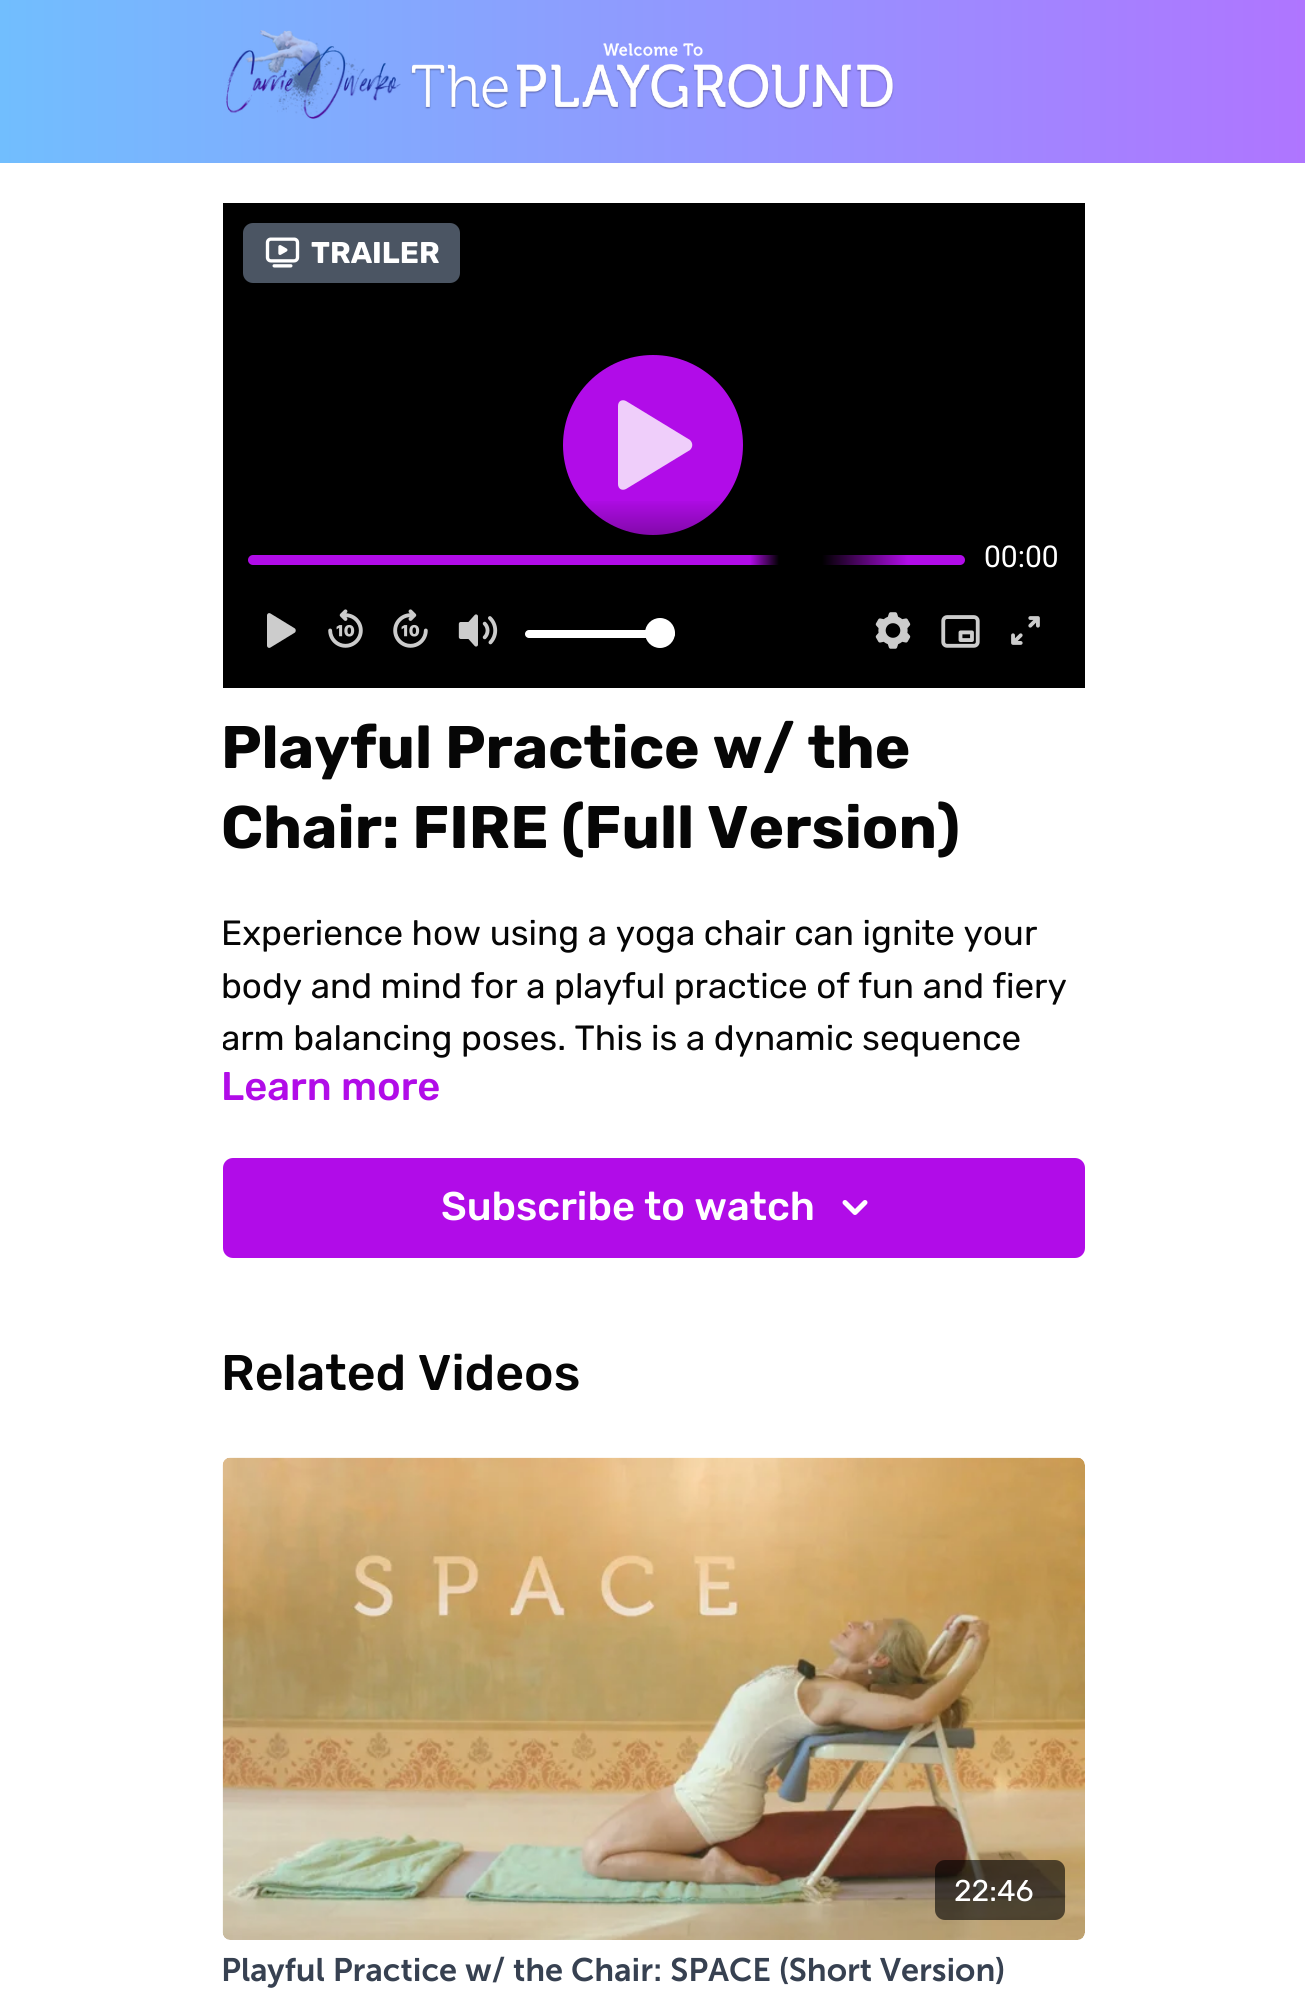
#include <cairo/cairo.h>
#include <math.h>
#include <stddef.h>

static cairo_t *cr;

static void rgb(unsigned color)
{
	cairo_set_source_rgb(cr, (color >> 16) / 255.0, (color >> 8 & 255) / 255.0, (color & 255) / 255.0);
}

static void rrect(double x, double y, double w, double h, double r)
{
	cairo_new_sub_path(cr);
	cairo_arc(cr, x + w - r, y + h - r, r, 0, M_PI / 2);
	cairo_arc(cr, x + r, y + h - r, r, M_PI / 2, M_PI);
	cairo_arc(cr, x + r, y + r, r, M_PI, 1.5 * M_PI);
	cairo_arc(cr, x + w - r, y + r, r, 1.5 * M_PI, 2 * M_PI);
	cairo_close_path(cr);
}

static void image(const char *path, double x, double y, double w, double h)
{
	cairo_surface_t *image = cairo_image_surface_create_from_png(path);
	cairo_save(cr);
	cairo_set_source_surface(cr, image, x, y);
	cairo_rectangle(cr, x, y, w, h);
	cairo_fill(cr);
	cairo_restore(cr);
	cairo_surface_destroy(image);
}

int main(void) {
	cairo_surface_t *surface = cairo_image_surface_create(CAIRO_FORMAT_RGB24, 1305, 2002);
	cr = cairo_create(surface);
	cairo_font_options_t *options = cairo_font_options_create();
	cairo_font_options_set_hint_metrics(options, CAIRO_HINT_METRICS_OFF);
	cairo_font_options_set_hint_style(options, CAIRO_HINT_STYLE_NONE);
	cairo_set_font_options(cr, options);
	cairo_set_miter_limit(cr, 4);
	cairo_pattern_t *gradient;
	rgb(0xffffff);
	cairo_paint(cr);
	gradient = cairo_pattern_create_linear(0, 81, 1305, 81);
	cairo_pattern_add_color_stop_rgba(gradient, 0, 0.443, 0.745, 0.996, 1);
	cairo_pattern_add_color_stop_rgba(gradient, 1, 0.686, 0.459, 1, 1);
	cairo_set_source(cr, gradient);
	cairo_pattern_destroy(gradient);
	cairo_rectangle(cr, 0, 0, 1305, 163);
	cairo_fill(cr);
	image("img/1.png", 226, 30, 175, 89);
	image("img/2.png", 410, 43, 484, 67);
	rgb(0x000000);
	cairo_rectangle(cr, 223, 203, 862, 485);
	cairo_fill(cr);
	rgb(0x4b5563);
	rrect(243, 223, 217, 60, 10);
	cairo_fill(cr);
	image("img/3.png", 265, 237, 35, 31);
	rgb(0xb10ce8);
	cairo_arc(cr, 653, 445, 90, 0, 2 * M_PI);
	cairo_fill(cr);
	rgb(0xefcefa);
	cairo_new_path(cr);
	cairo_move_to(cr, 626, 401);
	cairo_curve_to(cr, 622, 399, 618, 401, 618, 406);
	cairo_line_to(cr, 618, 484);
	cairo_curve_to(cr, 618, 489, 622, 491, 626, 489);
	cairo_line_to(cr, 690, 450);
	cairo_curve_to(cr, 693, 447, 693, 443, 690, 440);
	cairo_close_path(cr);
	cairo_fill(cr);
	gradient = cairo_pattern_create_linear(654, 688, 654, 490);
	cairo_pattern_add_color_stop_rgba(gradient, 0.54, 0, 0, 0, 0.6);
	cairo_pattern_add_color_stop_rgba(gradient, 0.96, 0, 0, 0, 0);
	cairo_set_source(cr, gradient);
	cairo_pattern_destroy(gradient);
	cairo_rectangle(cr, 583, 501, 140, 34);
	cairo_fill(cr);
	gradient = cairo_pattern_create_linear(248, 565, 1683, 565);
	cairo_pattern_add_color_stop_rgba(gradient, 0.35, 0.694, 0.047, 0.91, 1);
	cairo_pattern_add_color_stop_rgba(gradient, 0.37, 0, 0, 0, 1);
	cairo_pattern_add_color_stop_rgba(gradient, 0.4, 0, 0, 0, 1);
	cairo_pattern_add_color_stop_rgba(gradient, 0.46, 0.694, 0.047, 0.91, 1);
	cairo_pattern_add_color_stop_rgba(gradient, 1, 0.694, 0.047, 0.91, 1);
	cairo_set_source(cr, gradient);
	cairo_pattern_destroy(gradient);
	rrect(248, 555, 717, 10, 5);
	cairo_fill(cr);
	rgb(0xcccccc);
	cairo_new_path(cr);
	cairo_move_to(cr, 270.5, 613.5);
	cairo_curve_to(cr, 269, 612.5, 267, 613.5, 267, 615.5);
	cairo_line_to(cr, 267, 645.5);
	cairo_curve_to(cr, 267, 647.5, 269, 648.5, 270.5, 647.5);
	cairo_line_to(cr, 295, 632.5);
	cairo_curve_to(cr, 296, 631.5, 296, 629.5, 295, 628.5);
	cairo_close_path(cr);
	cairo_fill(cr);
	image("img/4.png", 328, 609, 35, 39);
	image("img/5.png", 393, 609, 35, 39);
	image("img/6.png", 458, 614, 40, 33);
	rgb(0xffffff);
	rrect(525, 630, 150, 8, 4);
	cairo_fill(cr);
	cairo_arc(cr, 660, 633, 15, 0, 2 * M_PI);
	cairo_fill(cr);
	image("img/7.png", 875, 612, 36, 37);
	image("img/8.png", 941, 615, 39, 33);
	image("img/9.png", 1011, 616, 29, 29);
	rgb(0xb10ce8);
	rrect(223, 1158, 862, 100, 10);
	cairo_fill(cr);
	image("img/10.png", 842, 1200, 26, 15);
	image("img/11.png", 222, 1457, 863, 483);
	cairo_set_source_rgba(cr, 0, 0, 0, 0.6);
	rrect(935, 1860, 130, 60, 10);
	cairo_fill(cr);
	cairo_select_font_face(cr, "Rubik", CAIRO_FONT_SLANT_NORMAL, CAIRO_FONT_WEIGHT_BOLD);
	cairo_set_font_size(cr, 30);
	rgb(0xffffff);
	cairo_move_to(cr, 311, 263);
	cairo_show_text(cr, "TRAILER");
	cairo_select_font_face(cr, "Roboto", CAIRO_FONT_SLANT_NORMAL, CAIRO_FONT_WEIGHT_NORMAL);
	cairo_move_to(cr, 984, 567);
	cairo_show_text(cr, "00:00");
	cairo_select_font_face(cr, "Rubik", CAIRO_FONT_SLANT_NORMAL, CAIRO_FONT_WEIGHT_BOLD);
	cairo_set_font_size(cr, 60);
	rgb(0x060606);
	cairo_move_to(cr, 221, 768);
	cairo_show_text(cr, "Playful Practice w/ the");
	cairo_move_to(cr, 221, 848);
	cairo_show_text(cr, "Chair: FIRE (Full Version)");
	cairo_select_font_face(cr, "Rubik", CAIRO_FONT_SLANT_NORMAL, CAIRO_FONT_WEIGHT_NORMAL);
	cairo_set_font_size(cr, 35);
	cairo_move_to(cr, 221, 945);
	cairo_show_text(cr, "Experience how using a yoga chair can ignite your");
	cairo_move_to(cr, 221, 998);
	cairo_show_text(cr, "body and mind for a playful practice of fun and fiery");
	cairo_save(cr);
	cairo_rectangle(cr, 223, 908, 862, 150);
	cairo_clip(cr);
	cairo_move_to(cr, 221, 1050);
	cairo_show_text(cr, "arm balancing poses. This is a dynamic sequence");
	cairo_restore(cr);
	cairo_select_font_face(cr, "Rubik Medium", CAIRO_FONT_SLANT_NORMAL, CAIRO_FONT_WEIGHT_NORMAL);
	cairo_set_font_size(cr, 40);
	rgb(0xb10ce8);
	cairo_move_to(cr, 221, 1100);
	cairo_show_text(cr, "Learn more");
	rgb(0xffffff);
	cairo_move_to(cr, 441, 1220);
	cairo_show_text(cr, "Subscribe to watch");
	cairo_set_font_size(cr, 50);
	rgb(0x060606);
	cairo_move_to(cr, 221, 1390);
	cairo_show_text(cr, "Related Videos");
	cairo_select_font_face(cr, "Rubik", CAIRO_FONT_SLANT_NORMAL, CAIRO_FONT_WEIGHT_NORMAL);
	cairo_set_font_size(cr, 30);
	rgb(0xffffff);
	cairo_move_to(cr, 954, 1901);
	cairo_show_text(cr, "22:46");
	cairo_select_font_face(cr, "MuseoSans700", CAIRO_FONT_SLANT_NORMAL, CAIRO_FONT_WEIGHT_NORMAL);
	cairo_set_font_size(cr, 32.5);
	rgb(0x374151);
	cairo_move_to(cr, 221, 1981);
	cairo_show_text(cr, "Playful Practice w/ the Chair: SPACE (Short Version)");
	cairo_surface_write_to_png(surface, "page.png");
	cairo_font_options_destroy(options);
	cairo_destroy(cr);
	cairo_surface_destroy(surface);
	return 0;
}
